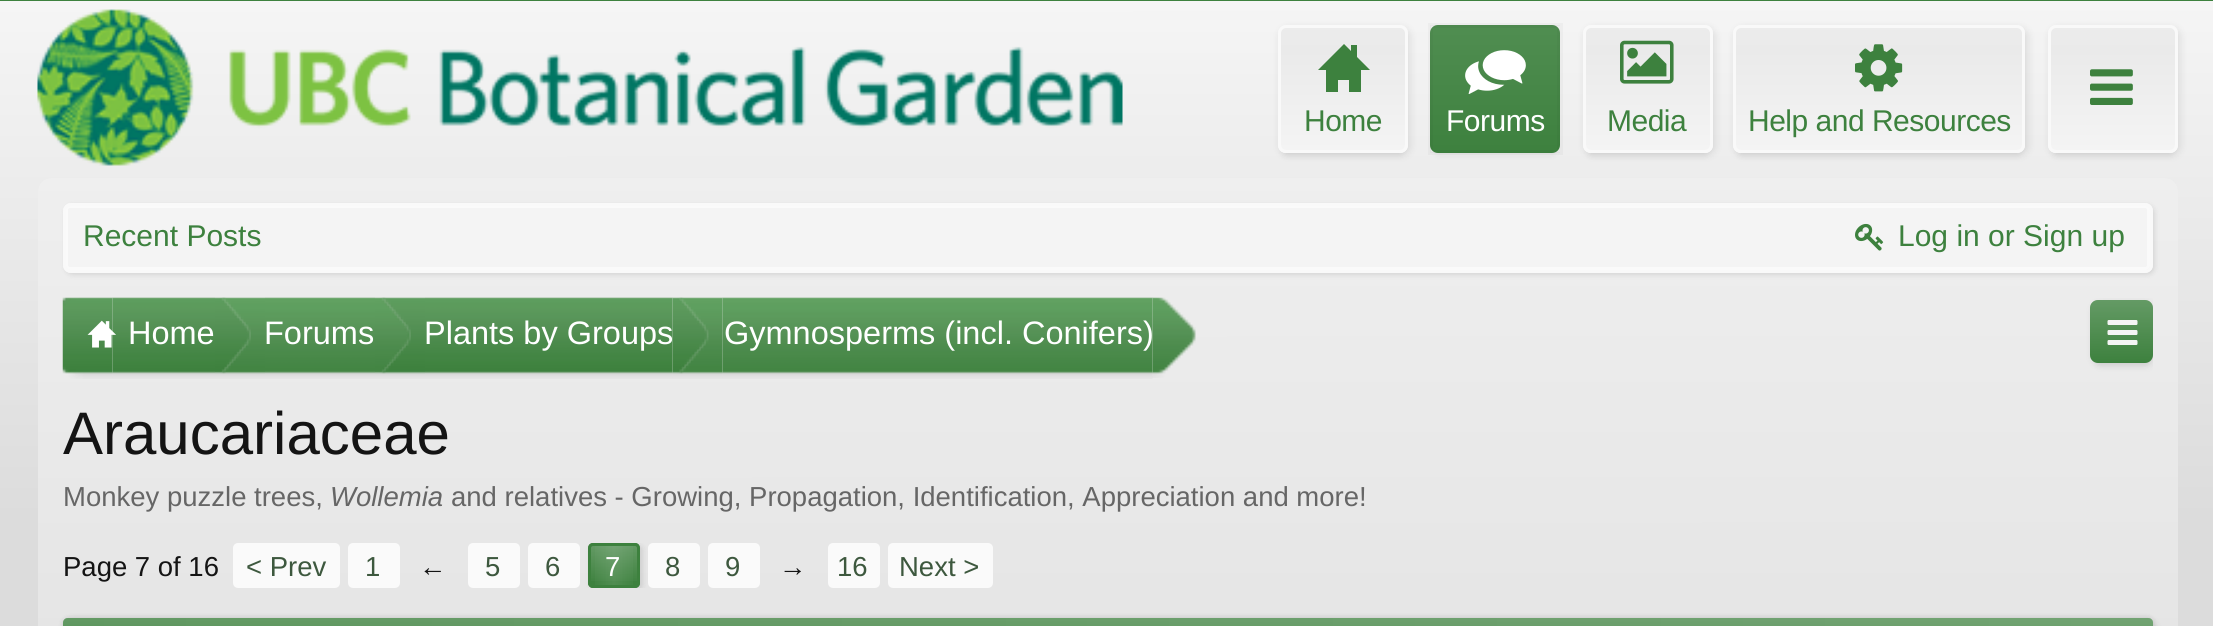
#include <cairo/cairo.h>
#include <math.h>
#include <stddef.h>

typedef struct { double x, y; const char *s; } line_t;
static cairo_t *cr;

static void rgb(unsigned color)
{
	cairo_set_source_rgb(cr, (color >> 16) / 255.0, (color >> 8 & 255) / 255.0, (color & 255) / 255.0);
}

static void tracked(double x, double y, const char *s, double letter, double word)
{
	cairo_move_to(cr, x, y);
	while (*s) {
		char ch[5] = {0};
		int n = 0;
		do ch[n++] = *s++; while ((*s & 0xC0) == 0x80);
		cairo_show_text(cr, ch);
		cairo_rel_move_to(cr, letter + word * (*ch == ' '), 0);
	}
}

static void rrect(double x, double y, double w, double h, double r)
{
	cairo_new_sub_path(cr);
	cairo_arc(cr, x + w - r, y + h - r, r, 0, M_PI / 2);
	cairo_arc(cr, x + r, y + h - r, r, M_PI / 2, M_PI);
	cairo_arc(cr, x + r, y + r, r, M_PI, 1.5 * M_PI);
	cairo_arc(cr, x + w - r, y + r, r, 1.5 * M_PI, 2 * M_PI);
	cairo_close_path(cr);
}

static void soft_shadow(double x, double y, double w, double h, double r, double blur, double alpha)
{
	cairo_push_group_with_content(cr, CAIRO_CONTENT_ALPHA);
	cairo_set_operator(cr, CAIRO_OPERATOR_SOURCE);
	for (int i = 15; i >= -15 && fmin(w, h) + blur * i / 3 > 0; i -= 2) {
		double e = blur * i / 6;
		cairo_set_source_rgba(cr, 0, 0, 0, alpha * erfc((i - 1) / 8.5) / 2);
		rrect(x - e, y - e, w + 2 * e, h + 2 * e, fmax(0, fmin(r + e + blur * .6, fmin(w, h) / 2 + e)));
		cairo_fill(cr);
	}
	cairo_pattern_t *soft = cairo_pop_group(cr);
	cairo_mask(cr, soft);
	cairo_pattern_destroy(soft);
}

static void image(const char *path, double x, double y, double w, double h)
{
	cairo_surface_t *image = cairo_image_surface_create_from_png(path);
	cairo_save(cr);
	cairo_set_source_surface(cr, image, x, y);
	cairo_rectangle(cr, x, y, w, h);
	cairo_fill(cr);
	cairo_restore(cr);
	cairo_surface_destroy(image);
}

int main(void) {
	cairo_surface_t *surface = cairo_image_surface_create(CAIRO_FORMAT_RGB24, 2213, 626);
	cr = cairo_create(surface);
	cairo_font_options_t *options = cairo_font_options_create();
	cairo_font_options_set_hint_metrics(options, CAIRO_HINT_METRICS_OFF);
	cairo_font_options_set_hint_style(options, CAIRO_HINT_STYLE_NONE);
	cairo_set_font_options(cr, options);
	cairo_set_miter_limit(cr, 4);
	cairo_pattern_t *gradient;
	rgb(0xffffff);
	cairo_paint(cr);
	gradient = cairo_pattern_create_linear(1107, 0, 1108, 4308);
	cairo_pattern_add_color_stop_rgba(gradient, 0, 0.961, 0.961, 0.961, 1);
	cairo_pattern_add_color_stop_rgba(gradient, 0.12, 0.863, 0.863, 0.863, 1);
	cairo_set_source(cr, gradient);
	cairo_pattern_destroy(gradient);
	cairo_rectangle(cr, 0, 1, 2213, 625);
	cairo_fill(cr);
	rgb(0x3d813e);
	cairo_rectangle(cr, 0, 0, 2213, 1);
	cairo_fill(cr);
	image("img/1.png", 37, 9, 1086, 157);
	rgb(0x000000);
	soft_shadow(1285, 40, 115, 113, 0, 4, 0.1);
	soft_shadow(1280, 28, 130, 127, 8, 4, 0.1);
	gradient = cairo_pattern_create_linear(1343, 25, 1343, 153);
	cairo_pattern_add_color_stop_rgba(gradient, 0, 0.925, 0.925, 0.925, 1);
	cairo_pattern_add_color_stop_rgba(gradient, 0.2, 0.918, 0.918, 0.918, 1);
	cairo_pattern_add_color_stop_rgba(gradient, 0.98, 0.957, 0.957, 0.957, 1);
	cairo_set_source(cr, gradient);
	cairo_pattern_destroy(gradient);
	rrect(1278, 25, 130, 128, 8);
	cairo_fill(cr);
	rrect(1279.5, 26.5, 127, 125, 6.5);
	cairo_set_source_rgba(cr, 1, 1, 1, 0.3);
	cairo_set_line_width(cr, 3);
	cairo_stroke(cr);
	rrect(1279.5, 26.5, 127, 125, 6.5);
	rgb(0xf9f9f9);
	cairo_stroke(cr);
	rgb(0x3d813e);
	cairo_new_path(cr);
	cairo_move_to(cr, 1326, 92);
	cairo_line_to(cr, 1326, 70);
	cairo_line_to(cr, 1318, 70);
	cairo_line_to(cr, 1344, 44);
	cairo_line_to(cr, 1351, 51);
	cairo_line_to(cr, 1351, 45);
	cairo_line_to(cr, 1357, 45);
	cairo_line_to(cr, 1357, 57);
	cairo_line_to(cr, 1370, 70);
	cairo_line_to(cr, 1361, 70);
	cairo_line_to(cr, 1361, 92);
	cairo_line_to(cr, 1349, 92);
	cairo_line_to(cr, 1349, 80);
	cairo_line_to(cr, 1338, 80);
	cairo_line_to(cr, 1338, 92);
	cairo_close_path(cr);
	cairo_fill(cr);
	rgb(0x000000);
	soft_shadow(1438, 40, 115, 113, 0, 4, 0.1);
	cairo_rectangle(cr, 1429.5, 24.5, 132, 129);
	cairo_set_source_rgba(cr, 0, 0, 0, 0.03);
	cairo_stroke(cr);
	rgb(0x3d813e);
	rrect(1430, 25, 130, 128, 8);
	cairo_fill(cr);
	gradient = cairo_pattern_create_linear(1495, 25, 1495, 153);
	cairo_pattern_add_color_stop_rgba(gradient, 0, 1, 1, 1, 0.1);
	cairo_pattern_add_color_stop_rgba(gradient, 1, 1, 1, 1, 0);
	cairo_set_source(cr, gradient);
	cairo_pattern_destroy(gradient);
	rrect(1430, 25, 130, 128, 8);
	cairo_fill(cr);
	cairo_rectangle(cr, 1431.5, 26.5, 127, 125);
	cairo_set_source_rgba(cr, 0, 0, 0, 0.03);
	cairo_stroke(cr);
	image("img/2.png", 1465, 50, 61, 44);
	rgb(0x000000);
	soft_shadow(1590, 40, 115, 113, 0, 4, 0.1);
	soft_shadow(1585, 28, 130, 127, 8, 4, 0.1);
	gradient = cairo_pattern_create_linear(1648, 25, 1648, 153);
	cairo_pattern_add_color_stop_rgba(gradient, 0, 0.925, 0.925, 0.925, 1);
	cairo_pattern_add_color_stop_rgba(gradient, 0.2, 0.918, 0.918, 0.918, 1);
	cairo_pattern_add_color_stop_rgba(gradient, 0.98, 0.957, 0.957, 0.957, 1);
	cairo_set_source(cr, gradient);
	cairo_pattern_destroy(gradient);
	rrect(1583, 25, 130, 128, 8);
	cairo_fill(cr);
	rrect(1584.5, 26.5, 127, 125, 6.5);
	cairo_set_source_rgba(cr, 1, 1, 1, 0.3);
	cairo_stroke(cr);
	rrect(1584.5, 26.5, 127, 125, 6.5);
	rgb(0xf9f9f9);
	cairo_stroke(cr);
	image("img/3.png", 1620, 40, 54, 44);
	rgb(0x000000);
	soft_shadow(1740, 40, 278, 113, 0, 4, 0.1);
	soft_shadow(1735, 28, 293, 127, 8, 4, 0.1);
	gradient = cairo_pattern_create_linear(1879, 25, 1879, 153);
	cairo_pattern_add_color_stop_rgba(gradient, 0, 0.925, 0.925, 0.925, 1);
	cairo_pattern_add_color_stop_rgba(gradient, 0.2, 0.918, 0.918, 0.918, 1);
	cairo_pattern_add_color_stop_rgba(gradient, 0.98, 0.957, 0.957, 0.957, 1);
	cairo_set_source(cr, gradient);
	cairo_pattern_destroy(gradient);
	rrect(1733, 25, 292, 128, 8);
	cairo_fill(cr);
	rrect(1734.5, 26.5, 289, 125, 6.5);
	cairo_set_source_rgba(cr, 1, 1, 1, 0.3);
	cairo_stroke(cr);
	rrect(1734.5, 26.5, 289, 125, 6.5);
	rgb(0xf9f9f9);
	cairo_stroke(cr);
	image("img/4.png", 1855, 44, 48, 48);
	rgb(0x000000);
	soft_shadow(2055, 40, 115, 113, 0, 4, 0.1);
	soft_shadow(2050, 28, 130, 127, 8, 4, 0.1);
	gradient = cairo_pattern_create_linear(2113, 25, 2113, 153);
	cairo_pattern_add_color_stop_rgba(gradient, 0, 0.925, 0.925, 0.925, 1);
	cairo_pattern_add_color_stop_rgba(gradient, 0.2, 0.918, 0.918, 0.918, 1);
	cairo_pattern_add_color_stop_rgba(gradient, 0.98, 0.957, 0.957, 0.957, 1);
	cairo_set_source(cr, gradient);
	cairo_pattern_destroy(gradient);
	rrect(2048, 25, 130, 128, 8);
	cairo_fill(cr);
	rrect(2049.5, 26.5, 127, 125, 6.5);
	cairo_set_source_rgba(cr, 1, 1, 1, 0.3);
	cairo_stroke(cr);
	rrect(2049.5, 26.5, 127, 125, 6.5);
	rgb(0xf9f9f9);
	cairo_stroke(cr);
	image("img/5.png", 2090, 69, 43, 36);
	rgb(0xe4e4e4);
	rrect(38, 178, 2140, 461, 13);
	cairo_fill(cr);
	gradient = cairo_pattern_create_linear(1107, 178, 1108, 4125);
	cairo_pattern_add_color_stop_rgba(gradient, 0, 1, 1, 1, 0.4);
	cairo_pattern_add_color_stop_rgba(gradient, 0.13, 1, 1, 1, 0);
	cairo_set_source(cr, gradient);
	cairo_pattern_destroy(gradient);
	rrect(38, 178, 2140, 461, 13);
	cairo_fill(cr);
	rgb(0x000000);
	soft_shadow(65, 205, 2090, 70, 8, 2.5, 0.1);
	rgb(0xf4f4f4);
	rrect(63, 203, 2090, 70, 8);
	cairo_fill(cr);
	rrect(66.5, 206.5, 2082, 62, 3.5);
	rgb(0xfafafa);
	cairo_stroke(cr);
	rrect(64.5, 204.5, 2087, 67, 6.5);
	rgb(0xf9f9f9);
	cairo_stroke(cr);
	image("img/6.png", 1855, 223, 29, 28);
	image("img/7.png", 112, 297, 103, 82);
	image("img/8.png", 62, 297, 51, 82);
	image("img/9.png", 87, 320, 29, 28);
	image("img/10.png", 215, 297, 36, 77);
	image("img/11.png", 265, 297, 110, 82);
	image("img/12.png", 215, 297, 50, 82);
	image("img/13.png", 375, 297, 36, 77);
	image("img/14.png", 425, 297, 248, 82);
	image("img/15.png", 375, 297, 50, 82);
	image("img/17.png", 722, 297, 431, 82);
	image("img/19.png", 1152, 297, 44, 81);
	rgb(0x000000);
	soft_shadow(2098, 315, 47, 48, 0, 4, 0.1);
	cairo_save(cr);
	cairo_rectangle(cr, 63, 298, 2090, 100);
	cairo_clip(cr);
	soft_shadow(2093, 303, 62, 62, 8, 4, 0.1);
	cairo_restore(cr);
	rgb(0x3d813e);
	rrect(2090, 300, 63, 63, 8);
	cairo_fill(cr);
	gradient = cairo_pattern_create_linear(2121, 300, 2121, 363);
	cairo_pattern_add_color_stop_rgba(gradient, 0, 1, 1, 1, 0.2);
	cairo_pattern_add_color_stop_rgba(gradient, 1, 1, 1, 1, 0);
	cairo_set_source(cr, gradient);
	cairo_pattern_destroy(gradient);
	rrect(2090, 300, 63, 63, 8);
	cairo_fill(cr);
	image("img/20.png", 2107, 320, 31, 25);
	rgb(0xfafafa);
	rrect(234.5, 544.5, 104, 42, 3.5);
	cairo_fill_preserve(cr);
	cairo_stroke(cr);
	rrect(349.5, 544.5, 49, 42, 3.5);
	cairo_fill_preserve(cr);
	cairo_stroke(cr);
	rrect(469.5, 544.5, 49, 42, 3.5);
	cairo_fill_preserve(cr);
	cairo_stroke(cr);
	rrect(529.5, 544.5, 49, 42, 3.5);
	cairo_fill_preserve(cr);
	cairo_stroke(cr);
	rrect(649.5, 544.5, 49, 42, 3.5);
	cairo_fill_preserve(cr);
	cairo_stroke(cr);
	cairo_save(cr);
	cairo_rectangle(cr, 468, 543, 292, 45);
	cairo_clip(cr);
	rgb(0x000000);
	soft_shadow(590, 545, 53, 45, 5, 2.5, 0.1);
	cairo_restore(cr);
	rgb(0x3d813e);
	rrect(588, 543, 52, 45, 5);
	cairo_fill(cr);
	gradient = cairo_pattern_create_linear(590, 565, 638, 565);
	cairo_pattern_add_color_stop_rgba(gradient, 0, 1, 1, 1, 0);
	cairo_pattern_add_color_stop_rgba(gradient, 0.5, 1, 1, 1, 0.1);
	cairo_pattern_add_color_stop_rgba(gradient, 1, 1, 1, 1, 0);
	cairo_set_source(cr, gradient);
	cairo_pattern_destroy(gradient);
	cairo_rectangle(cr, 595, 546, 38, 39);
	cairo_fill(cr);
	gradient = cairo_pattern_create_linear(614, 545, 614, 585);
	cairo_pattern_add_color_stop_rgba(gradient, 0, 1, 1, 1, 0.2);
	cairo_pattern_add_color_stop_rgba(gradient, 1, 1, 1, 1, 0);
	cairo_set_source(cr, gradient);
	cairo_pattern_destroy(gradient);
	cairo_rectangle(cr, 588, 545, 52, 36);
	cairo_fill(cr);
	rrect(589.5, 544.5, 49, 42, 3.5);
	rgb(0x3d813e);
	cairo_stroke(cr);
	rgb(0xfafafa);
	rrect(709.5, 544.5, 49, 42, 3.5);
	cairo_fill_preserve(cr);
	cairo_stroke(cr);
	rrect(829.5, 544.5, 49, 42, 3.5);
	cairo_fill_preserve(cr);
	cairo_stroke(cr);
	rrect(889.5, 544.5, 102, 42, 3.5);
	cairo_fill_preserve(cr);
	cairo_stroke(cr);
	rgb(0x000000);
	soft_shadow(65, 620, 2090, 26, 8, 4, 0.15);
	rrect(65.5, 620.5, 2085, 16, 5.5);
	cairo_set_source_rgba(cr, 1, 1, 1, 0.5);
	cairo_set_line_width(cr, 5);
	cairo_stroke(cr);
	rrect(64.5, 619.5, 2087, 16, 6.5);
	rgb(0xf9f9f9);
	cairo_set_line_width(cr, 3);
	cairo_stroke(cr);
	rgb(0x000000);
	soft_shadow(63, 618, 2090, 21, 5, 2.5, 0.1);
	rgb(0x3d813e);
	cairo_new_path(cr);
	cairo_move_to(cr, 68, 618);
	cairo_line_to(cr, 2148, 618);
	cairo_curve_to(cr, 2151, 618, 2153, 620, 2153, 623);
	cairo_line_to(cr, 2153, 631);
	cairo_line_to(cr, 63, 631);
	cairo_line_to(cr, 63, 623);
	cairo_curve_to(cr, 63, 620, 65, 618, 68, 618);
	cairo_close_path(cr);
	cairo_fill(cr);
	gradient = cairo_pattern_create_linear(63, 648, 2153, 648);
	cairo_pattern_add_color_stop_rgba(gradient, 0, 1, 1, 1, 0);
	cairo_pattern_add_color_stop_rgba(gradient, 1, 1, 1, 1, 0.1);
	cairo_set_source(cr, gradient);
	cairo_pattern_destroy(gradient);
	cairo_new_path(cr);
	cairo_move_to(cr, 68, 618);
	cairo_line_to(cr, 2148, 618);
	cairo_curve_to(cr, 2151, 618, 2153, 620, 2153, 623);
	cairo_line_to(cr, 2153, 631);
	cairo_line_to(cr, 63, 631);
	cairo_line_to(cr, 63, 623);
	cairo_curve_to(cr, 63, 620, 65, 618, 68, 618);
	cairo_close_path(cr);
	cairo_fill(cr);
	gradient = cairo_pattern_create_linear(1108, 617, 1108, 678);
	cairo_pattern_add_color_stop_rgba(gradient, 0, 1, 1, 1, 0.2);
	cairo_pattern_add_color_stop_rgba(gradient, 1, 1, 1, 1, 0);
	cairo_set_source(cr, gradient);
	cairo_pattern_destroy(gradient);
	cairo_new_path(cr);
	cairo_move_to(cr, 68, 618);
	cairo_line_to(cr, 2148, 618);
	cairo_curve_to(cr, 2151, 618, 2153, 620, 2153, 623);
	cairo_line_to(cr, 2153, 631);
	cairo_line_to(cr, 63, 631);
	cairo_line_to(cr, 63, 623);
	cairo_curve_to(cr, 63, 620, 65, 618, 68, 618);
	cairo_close_path(cr);
	cairo_fill(cr);
	cairo_select_font_face(cr, "Liberation Sans", CAIRO_FONT_SLANT_NORMAL, CAIRO_FONT_WEIGHT_NORMAL);
	cairo_set_font_size(cr, 30);
	rgb(0x3d813e);
	tracked(1304, 131, "Home", -0.5, 0);
	rgb(0xffffff);
	tracked(1446, 131, "Forums", -0.5, 0);
	rgb(0x3d813e);
	tracked(1607, 131, "Media", -0.5, 0);
	tracked(1748, 131, "Help and Resources", -0.5, 0);
	cairo_move_to(cr, 83, 246);
	cairo_show_text(cr, "Recent Posts");
	cairo_move_to(cr, 1898, 246);
	cairo_show_text(cr, "Log in or Sign up");
	cairo_set_font_size(cr, 32.5);
	rgb(0xffffff);
	{
		static const line_t items[] = {
			{128, 344, "Home"},
			{264, 344, "Forums"},
			{424, 344, "Plants by Groups"},
		};
		for (size_t i = 0; i < sizeof items / sizeof *items; i++) {
			cairo_move_to(cr, items[i].x, items[i].y);
			cairo_show_text(cr, items[i].s);
		}
	}
	image("img/16.png", 672, 297, 37, 77);
	image("img/18.png", 672, 297, 51, 82);
	cairo_move_to(cr, 724, 344);
	cairo_show_text(cr, "Gymnosperms (incl. Conifers)");
	cairo_set_font_size(cr, 60);
	rgb(0x141414);
	cairo_move_to(cr, 63, 454);
	cairo_show_text(cr, "Araucariaceae");
	cairo_set_font_size(cr, 27.5);
	rgb(0x666666);
	cairo_move_to(cr, 63, 506);
	cairo_show_text(cr, "Monkey puzzle trees,");
	cairo_select_font_face(cr, "Liberation Sans", CAIRO_FONT_SLANT_ITALIC, CAIRO_FONT_WEIGHT_NORMAL);
	cairo_move_to(cr, 330, 506);
	cairo_show_text(cr, "Wollemia");
	cairo_select_font_face(cr, "Liberation Sans", CAIRO_FONT_SLANT_NORMAL, CAIRO_FONT_WEIGHT_NORMAL);
	cairo_move_to(cr, 451, 506);
	cairo_show_text(cr, "and relatives - Growing, Propagation, Identification, Appreciation and more!");
	rgb(0x141414);
	cairo_move_to(cr, 63, 576);
	cairo_show_text(cr, "Page 7 of 16");
	rgb(0x3d583e);
	cairo_move_to(cr, 246, 576);
	cairo_show_text(cr, "< Prev");
	cairo_move_to(cr, 365, 576);
	cairo_show_text(cr, "1");
	rgb(0x141414);
	cairo_move_to(cr, 419, 576);
	cairo_show_text(cr, "←");
	rgb(0x3d583e);
	cairo_move_to(cr, 485, 576);
	cairo_show_text(cr, "5");
	cairo_move_to(cr, 545, 576);
	cairo_show_text(cr, "6");
	rgb(0xffffff);
	cairo_move_to(cr, 605, 576);
	cairo_show_text(cr, "7");
	rgb(0x3d583e);
	cairo_move_to(cr, 665, 576);
	cairo_show_text(cr, "8");
	cairo_move_to(cr, 725, 576);
	cairo_show_text(cr, "9");
	rgb(0x141414);
	cairo_move_to(cr, 779, 576);
	cairo_show_text(cr, "→");
	rgb(0x3d583e);
	cairo_move_to(cr, 837, 576);
	cairo_show_text(cr, "16");
	cairo_move_to(cr, 899, 576);
	cairo_show_text(cr, "Next >");
	cairo_surface_write_to_png(surface, "page.png");
	cairo_font_options_destroy(options);
	cairo_destroy(cr);
	cairo_surface_destroy(surface);
	return 0;
}
